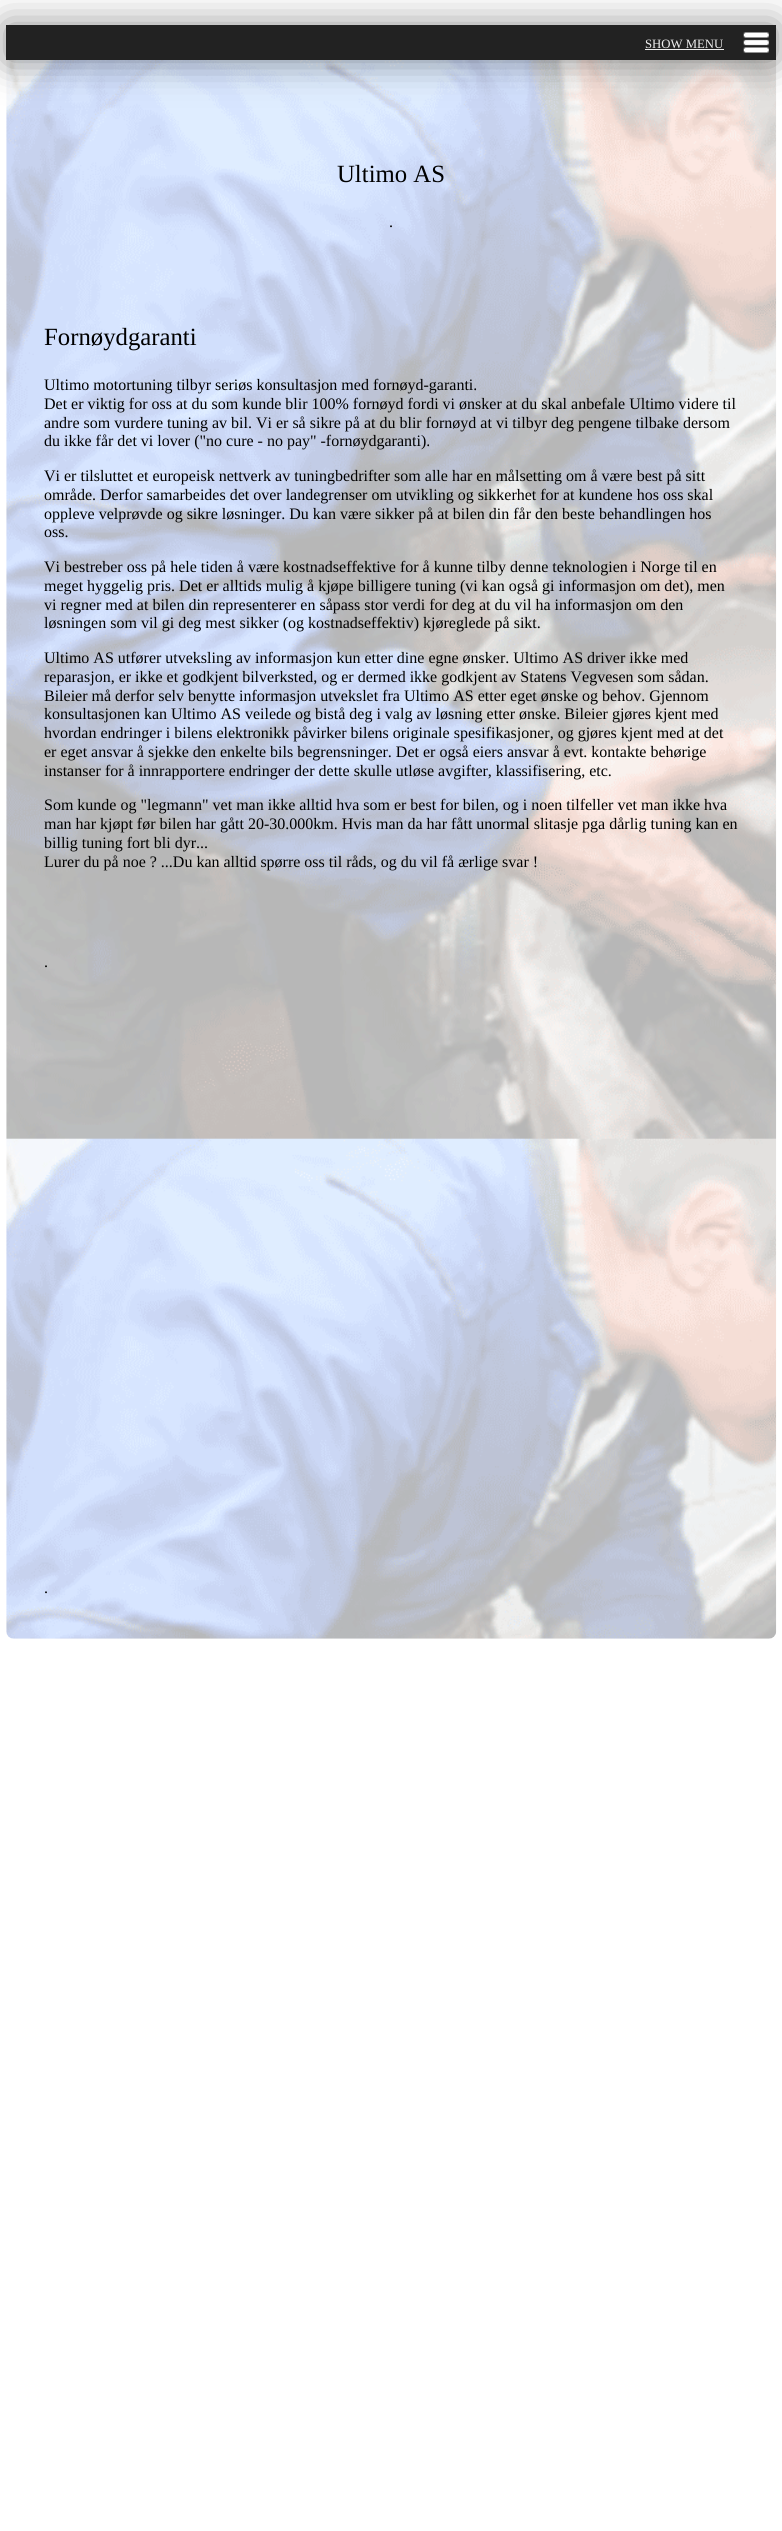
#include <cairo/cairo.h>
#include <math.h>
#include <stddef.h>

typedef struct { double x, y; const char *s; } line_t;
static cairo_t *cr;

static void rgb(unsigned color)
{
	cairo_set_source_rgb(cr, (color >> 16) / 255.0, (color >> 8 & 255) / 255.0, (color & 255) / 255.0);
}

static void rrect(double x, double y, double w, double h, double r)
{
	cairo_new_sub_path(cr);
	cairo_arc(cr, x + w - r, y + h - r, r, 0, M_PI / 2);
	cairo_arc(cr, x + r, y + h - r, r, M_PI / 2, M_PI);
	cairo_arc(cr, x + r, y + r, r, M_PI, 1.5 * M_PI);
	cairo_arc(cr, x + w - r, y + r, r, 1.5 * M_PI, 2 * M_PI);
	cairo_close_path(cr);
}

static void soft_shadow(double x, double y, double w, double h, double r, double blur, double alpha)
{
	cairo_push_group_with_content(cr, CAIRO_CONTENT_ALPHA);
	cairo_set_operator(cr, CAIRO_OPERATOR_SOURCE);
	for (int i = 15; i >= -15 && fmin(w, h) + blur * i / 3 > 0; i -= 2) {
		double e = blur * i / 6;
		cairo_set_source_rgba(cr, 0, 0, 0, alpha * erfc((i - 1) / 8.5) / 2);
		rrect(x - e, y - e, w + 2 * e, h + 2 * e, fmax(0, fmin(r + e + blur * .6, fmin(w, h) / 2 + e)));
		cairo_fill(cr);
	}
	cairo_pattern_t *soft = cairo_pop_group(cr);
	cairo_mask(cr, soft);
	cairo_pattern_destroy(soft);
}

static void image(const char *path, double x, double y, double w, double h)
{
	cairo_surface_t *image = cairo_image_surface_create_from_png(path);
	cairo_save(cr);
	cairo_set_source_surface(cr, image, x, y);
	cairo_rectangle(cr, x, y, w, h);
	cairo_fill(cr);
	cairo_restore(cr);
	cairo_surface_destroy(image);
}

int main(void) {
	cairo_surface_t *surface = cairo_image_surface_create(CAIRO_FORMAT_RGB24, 782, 2531);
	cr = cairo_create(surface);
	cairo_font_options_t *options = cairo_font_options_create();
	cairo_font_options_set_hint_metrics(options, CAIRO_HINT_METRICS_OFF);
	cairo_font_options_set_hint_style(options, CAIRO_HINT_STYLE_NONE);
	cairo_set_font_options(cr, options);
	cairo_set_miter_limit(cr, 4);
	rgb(0xffffff);
	cairo_paint(cr);
	image("img/1.png", 6, 31, 771, 1608);
	rgb(0x000000);
	soft_shadow(6, 25, 770, 35, 0, 19, 0.45);
	rgb(0x222222);
	cairo_rectangle(cr, 6, 25, 770, 35);
	cairo_fill(cr);
	rgb(0xeeeeee);
	cairo_rectangle(cr, 645, 49, 79, 1);
	cairo_fill(cr);
	image("img/2.png", 743, 32, 26, 21);
	cairo_select_font_face(cr, "Liberation Serif", CAIRO_FONT_SLANT_NORMAL, CAIRO_FONT_WEIGHT_NORMAL);
	cairo_set_font_size(cr, 12.75);
	cairo_move_to(cr, 645, 48);
	cairo_show_text(cr, "SHOW MENU");
	cairo_set_font_size(cr, 24.75);
	rgb(0x000000);
	cairo_move_to(cr, 337, 182);
	cairo_show_text(cr, "Ultimo AS");
	cairo_set_font_size(cr, 16);
	cairo_move_to(cr, 389, 227);
	cairo_show_text(cr, ".");
	cairo_set_font_size(cr, 24.75);
	cairo_move_to(cr, 44, 345);
	cairo_show_text(cr, "Fornøydgaranti");
	cairo_set_font_size(cr, 16);
	{
		static const line_t items[] = {
			{44, 390, "Ultimo motortuning tilbyr seriøs konsultasjon med fornøyd-garanti."},
			{44, 409, "Det er viktig for oss at du som kunde blir 100% fornøyd fordi vi ønsker at du skal anbefale Ultimo videre til"},
			{44, 428, "andre som vurdere tuning av bil. Vi er så sikre på at du blir fornøyd at vi tilbyr deg pengene tilbake dersom"},
			{44, 446, "du ikke får det vi lover (\"no cure - no pay\" -fornøydgaranti)."},
			{44, 481, "Vi er tilsluttet et europeisk nettverk av tuningbedrifter som alle har en målsetting om å være best på sitt"},
			{44, 500, "område. Derfor samarbeides det over landegrenser om utvikling og sikkerhet for at kundene hos oss skal"},
			{44, 519, "oppleve velprøvde og sikre løsninger. Du kan være sikker på at bilen din får den beste behandlingen hos"},
			{44, 537, "oss."},
			{44, 572, "Vi bestreber oss på hele tiden å være kostnadseffektive for å kunne tilby denne teknologien i Norge til en"},
			{44, 591, "meget hyggelig pris. Det er alltids mulig å kjøpe billigere tuning (vi kan også gi informasjon om det), men"},
			{44, 610, "vi regner med at bilen din representerer en såpass stor verdi for deg at du vil ha informasjon om den"},
			{44, 628, "løsningen som vil gi deg mest sikker (og kostnadseffektiv) kjøreglede på sikt."},
			{44, 663, "Ultimo AS utfører utveksling av informasjon kun etter dine egne ønsker. Ultimo AS driver ikke med"},
			{44, 682, "reparasjon, er ikke et godkjent bilverksted, og er dermed ikke godkjent av Statens Vegvesen som sådan."},
			{44, 701, "Bileier må derfor selv benytte informasjon utvekslet fra Ultimo AS etter eget ønske og behov. Gjennom"},
			{44, 719, "konsultasjonen kan Ultimo AS veilede og bistå deg i valg av løsning etter ønske. Bileier gjøres kjent med"},
			{44, 738, "hvordan endringer i bilens elektronikk påvirker bilens originale spesifikasjoner, og gjøres kjent med at det"},
			{44, 757, "er eget ansvar å sjekke den enkelte bils begrensninger. Det er også eiers ansvar å evt. kontakte behørige"},
			{44, 776, "instanser for å innrapportere endringer der dette skulle utløse avgifter, klassifisering, etc."},
			{44, 810, "Som kunde og \"legmann\" vet man ikke alltid hva som er best for bilen, og i noen tilfeller vet man ikke hva"},
			{44, 829, "man har kjøpt før bilen har gått 20-30.000km. Hvis man da har fått unormal slitasje pga dårlig tuning kan en"},
			{44, 848, "billig tuning fort bli dyr..."},
			{44, 867, "Lurer du på noe ? ...Du kan alltid spørre oss til råds, og du vil få ærlige svar !"},
			{44, 967, "."},
			{44, 1593, "."},
		};
		for (size_t i = 0; i < sizeof items / sizeof *items; i++) {
			cairo_move_to(cr, items[i].x, items[i].y);
			cairo_show_text(cr, items[i].s);
		}
	}
	cairo_surface_write_to_png(surface, "page.png");
	cairo_font_options_destroy(options);
	cairo_destroy(cr);
	cairo_surface_destroy(surface);
	return 0;
}
